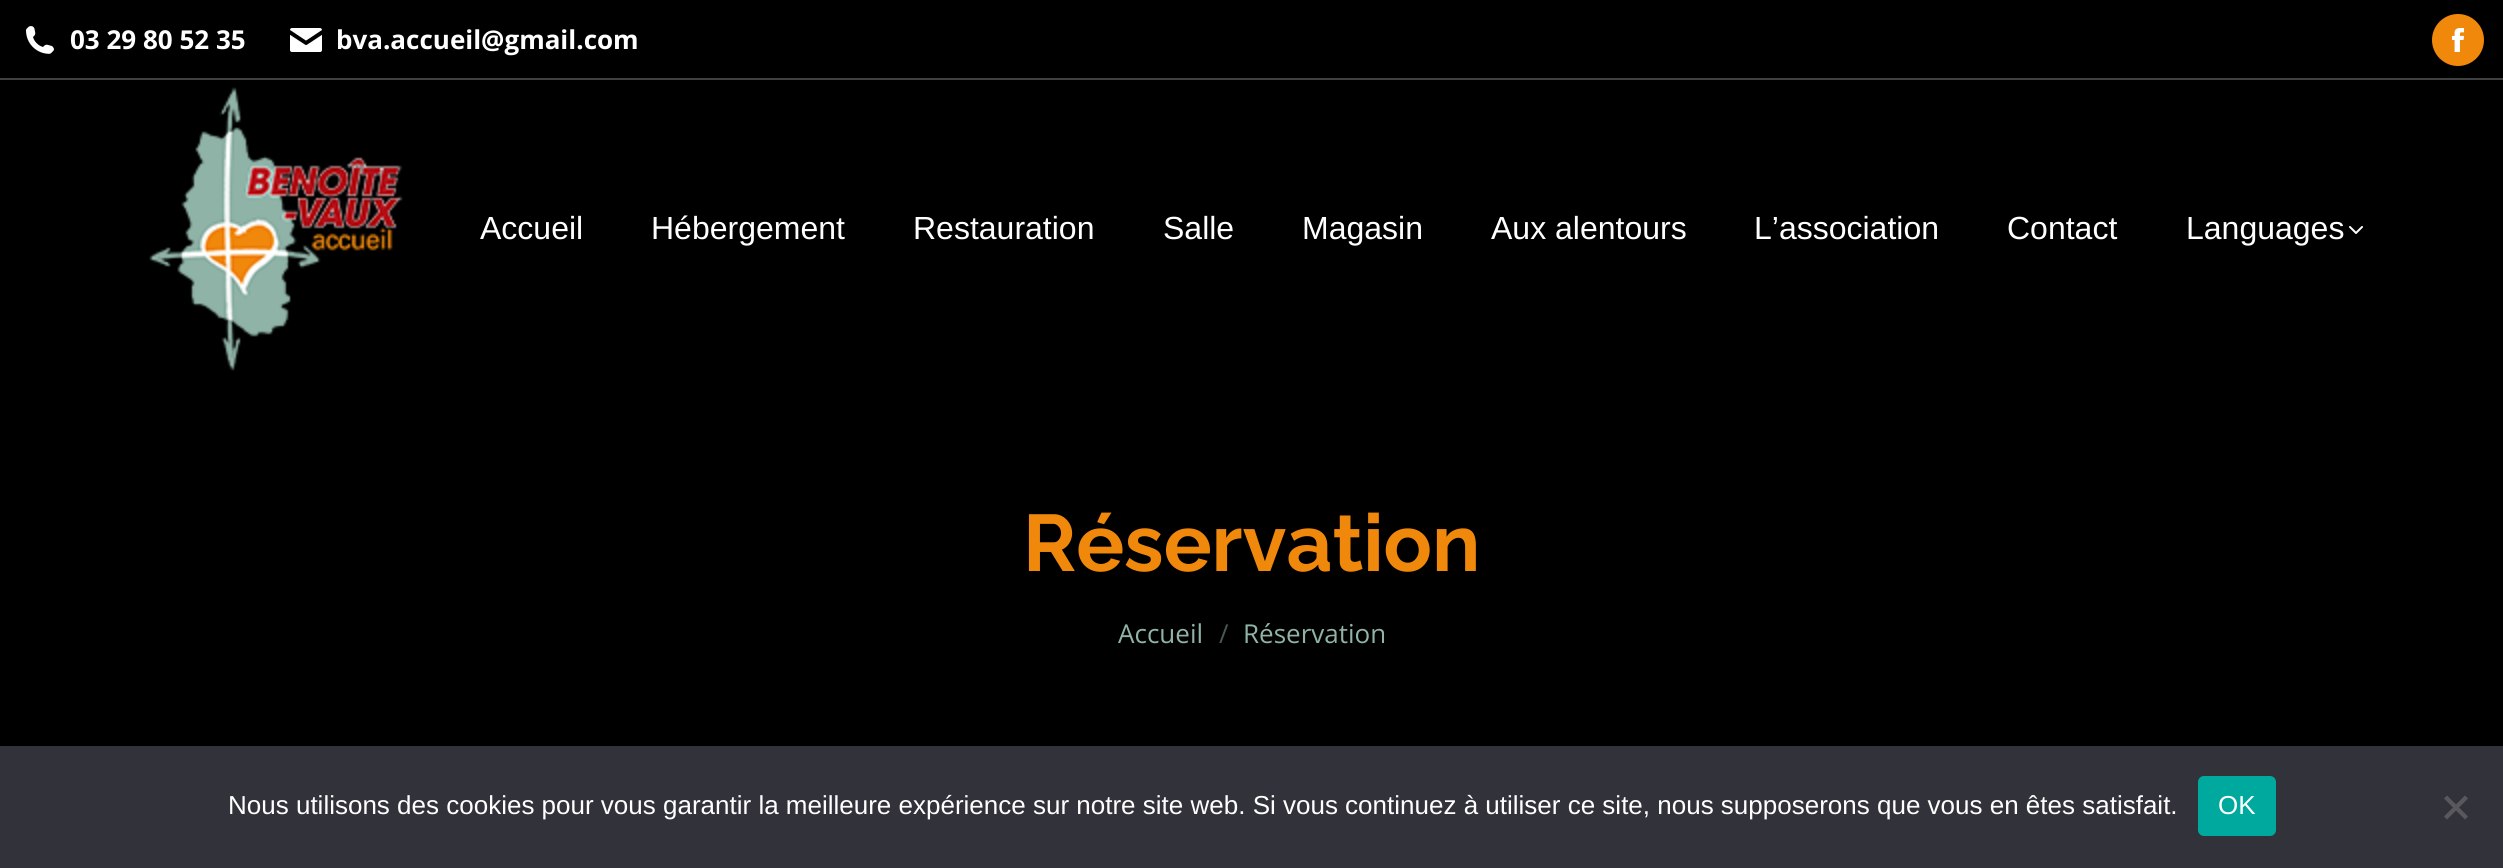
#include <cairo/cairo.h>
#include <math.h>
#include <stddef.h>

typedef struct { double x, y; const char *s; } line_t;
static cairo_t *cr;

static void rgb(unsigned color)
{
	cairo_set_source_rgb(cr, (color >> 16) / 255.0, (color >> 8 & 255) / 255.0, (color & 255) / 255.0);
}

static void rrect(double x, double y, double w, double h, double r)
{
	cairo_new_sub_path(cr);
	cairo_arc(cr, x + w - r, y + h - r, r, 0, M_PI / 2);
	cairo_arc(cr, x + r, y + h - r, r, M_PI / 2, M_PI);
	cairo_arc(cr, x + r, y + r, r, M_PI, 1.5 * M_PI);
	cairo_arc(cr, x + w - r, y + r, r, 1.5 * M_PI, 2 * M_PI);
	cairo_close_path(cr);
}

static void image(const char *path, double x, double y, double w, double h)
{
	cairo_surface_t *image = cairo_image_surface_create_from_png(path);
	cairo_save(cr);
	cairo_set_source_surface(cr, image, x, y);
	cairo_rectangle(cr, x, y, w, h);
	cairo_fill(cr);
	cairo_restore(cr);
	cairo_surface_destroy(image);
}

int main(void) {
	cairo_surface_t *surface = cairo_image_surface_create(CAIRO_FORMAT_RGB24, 2503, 868);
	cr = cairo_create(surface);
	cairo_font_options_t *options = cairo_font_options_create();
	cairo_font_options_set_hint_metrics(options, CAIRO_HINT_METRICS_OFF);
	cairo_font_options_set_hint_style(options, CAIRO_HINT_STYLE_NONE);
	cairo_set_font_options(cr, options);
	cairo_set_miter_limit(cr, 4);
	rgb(0x000000);
	cairo_paint(cr);
	image("img/1.png", 26, 26, 28, 28);
	image("img/2.png", 290, 28, 32, 24);
	rgb(0xf0880c);
	cairo_arc(cr, 2458, 40, 26, 0, 2 * M_PI);
	cairo_fill(cr);
	image("img/3.png", 2451, 28, 14, 24);
	rgb(0x404040);
	cairo_rectangle(cr, 0, 78, 2503, 2);
	cairo_fill(cr);
	image("img/4.png", 149, 87, 254, 284);
	image("img/5.png", 2349, 226, 14, 8);
	rgb(0x32323a);
	cairo_rectangle(cr, 0, 746, 2503, 122);
	cairo_fill(cr);
	rgb(0x00a99d);
	rrect(2198, 776, 78, 60, 6);
	cairo_fill(cr);
	rgb(0x59595d);
	cairo_new_path(cr);
	cairo_move_to(cr, 2465, 795.5);
	cairo_line_to(cr, 2468, 798.5);
	cairo_line_to(cr, 2447, 819.5);
	cairo_line_to(cr, 2444, 816.5);
	cairo_close_path(cr);
	cairo_fill(cr);
	cairo_new_path(cr);
	cairo_move_to(cr, 2444, 798.5);
	cairo_line_to(cr, 2447, 795.5);
	cairo_line_to(cr, 2468, 816.5);
	cairo_line_to(cr, 2465, 819.5);
	cairo_close_path(cr);
	cairo_fill(cr);
	cairo_select_font_face(cr, "Open Sans", CAIRO_FONT_SLANT_NORMAL, CAIRO_FONT_WEIGHT_BOLD);
	cairo_set_font_size(cr, 26);
	rgb(0xffffff);
	cairo_move_to(cr, 70, 49);
	cairo_show_text(cr, "03 29 80 52 35");
	cairo_move_to(cr, 336, 49);
	cairo_show_text(cr, "bva.accueil@gmail.com");
	cairo_select_font_face(cr, "Liberation Sans", CAIRO_FONT_SLANT_NORMAL, CAIRO_FONT_WEIGHT_NORMAL);
	cairo_set_font_size(cr, 32);
	{
		static const line_t items[] = {
			{480, 239, "Accueil"},
			{651, 239, "Hébergement"},
			{913, 239, "Restauration"},
			{1163, 239, "Salle"},
			{1302, 239, "Magasin"},
			{1491, 239, "Aux alentours"},
			{1754, 239, "L’association"},
			{2007, 239, "Contact"},
			{2186, 239, "Languages"},
		};
		for (size_t i = 0; i < sizeof items / sizeof *items; i++) {
			cairo_move_to(cr, items[i].x, items[i].y);
			cairo_show_text(cr, items[i].s);
		}
	}
	cairo_select_font_face(cr, "Raleway", CAIRO_FONT_SLANT_NORMAL, CAIRO_FONT_WEIGHT_BOLD);
	cairo_set_font_size(cr, 80);
	rgb(0xf0880c);
	cairo_move_to(cr, 1023, 571);
	cairo_show_text(cr, "Réservation");
	cairo_select_font_face(cr, "Open Sans", CAIRO_FONT_SLANT_NORMAL, CAIRO_FONT_WEIGHT_NORMAL);
	cairo_set_font_size(cr, 26);
	rgb(0x90b3a8);
	cairo_move_to(cr, 1118, 643);
	cairo_show_text(cr, "Accueil");
	rgb(0x485a54);
	cairo_move_to(cr, 1219, 643);
	cairo_show_text(cr, "/");
	rgb(0x90b3a8);
	cairo_move_to(cr, 1243, 643);
	cairo_show_text(cr, "Réservation");
	cairo_select_font_face(cr, "Liberation Sans", CAIRO_FONT_SLANT_NORMAL, CAIRO_FONT_WEIGHT_NORMAL);
	rgb(0xffffff);
	cairo_move_to(cr, 228, 814);
	cairo_show_text(cr, "Nous utilisons des cookies pour vous garantir la meilleure expérience sur notre site web. Si vous continuez à utiliser ce site, nous supposerons que vous en êtes satisfait.");
	cairo_move_to(cr, 2218, 814);
	cairo_show_text(cr, "OK");
	cairo_surface_write_to_png(surface, "page.png");
	cairo_font_options_destroy(options);
	cairo_destroy(cr);
	cairo_surface_destroy(surface);
	return 0;
}
